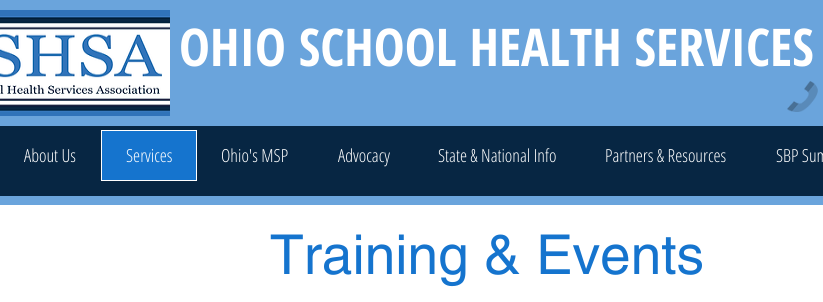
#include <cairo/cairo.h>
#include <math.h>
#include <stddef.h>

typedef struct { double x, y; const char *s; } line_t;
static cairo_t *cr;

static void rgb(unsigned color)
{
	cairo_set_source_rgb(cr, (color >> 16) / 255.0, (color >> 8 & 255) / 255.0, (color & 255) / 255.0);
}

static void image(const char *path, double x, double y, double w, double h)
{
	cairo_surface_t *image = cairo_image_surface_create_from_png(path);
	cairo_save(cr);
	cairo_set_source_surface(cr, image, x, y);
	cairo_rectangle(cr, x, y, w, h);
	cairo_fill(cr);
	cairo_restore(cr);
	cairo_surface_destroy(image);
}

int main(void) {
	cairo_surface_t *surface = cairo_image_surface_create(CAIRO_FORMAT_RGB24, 823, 302);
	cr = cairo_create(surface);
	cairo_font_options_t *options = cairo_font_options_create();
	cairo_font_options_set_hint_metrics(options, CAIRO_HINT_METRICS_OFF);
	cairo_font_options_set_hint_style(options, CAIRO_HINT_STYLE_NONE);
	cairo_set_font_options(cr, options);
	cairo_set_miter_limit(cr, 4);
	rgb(0x6aa4dc);
	cairo_paint(cr);
	image("img/1.png", 0, 10, 170, 106);
	image("img/2.png", 787, 81, 31, 31);
	rgb(0x072643);
	cairo_rectangle(cr, 0, 126, 823, 70);
	cairo_fill(cr);
	rgb(0x1574ce);
	cairo_rectangle(cr, 101.5, 130.5, 95, 50);
	cairo_fill_preserve(cr);
	rgb(0xffffff);
	cairo_set_line_width(cr, 1);
	cairo_stroke(cr);
	cairo_rectangle(cr, 0, 205, 823, 97);
	cairo_fill(cr);
	cairo_select_font_face(cr, "Open Sans Condensed", CAIRO_FONT_SLANT_NORMAL, CAIRO_FONT_WEIGHT_BOLD);
	cairo_set_font_size(cr, 52);
	cairo_move_to(cr, 179, 66);
	cairo_show_text(cr, "OHIO SCHOOL HEALTH SERVICES");
	cairo_select_font_face(cr, "Open Sans Condensed Light", CAIRO_FONT_SLANT_NORMAL, CAIRO_FONT_WEIGHT_NORMAL);
	cairo_set_font_size(cr, 18);
	{
		static const line_t items[] = {
			{24, 162, "About Us"},
			{126, 162, "Services"},
			{221, 162, "Ohio's MSP"},
			{338, 162, "Advocacy"},
			{438, 162, "State & National Info"},
			{605, 162, "Partners & Resources"},
			{776, 162, "SBP Sum"},
		};
		for (size_t i = 0; i < sizeof items / sizeof *items; i++) {
			cairo_move_to(cr, items[i].x, items[i].y);
			cairo_show_text(cr, items[i].s);
		}
	}
	cairo_select_font_face(cr, "helvetica", CAIRO_FONT_SLANT_NORMAL, CAIRO_FONT_WEIGHT_NORMAL);
	cairo_set_font_size(cr, 55);
	rgb(0x1574ce);
	cairo_move_to(cr, 270, 274);
	cairo_show_text(cr, "Training & Events");
	cairo_surface_write_to_png(surface, "page.png");
	cairo_font_options_destroy(options);
	cairo_destroy(cr);
	cairo_surface_destroy(surface);
	return 0;
}
